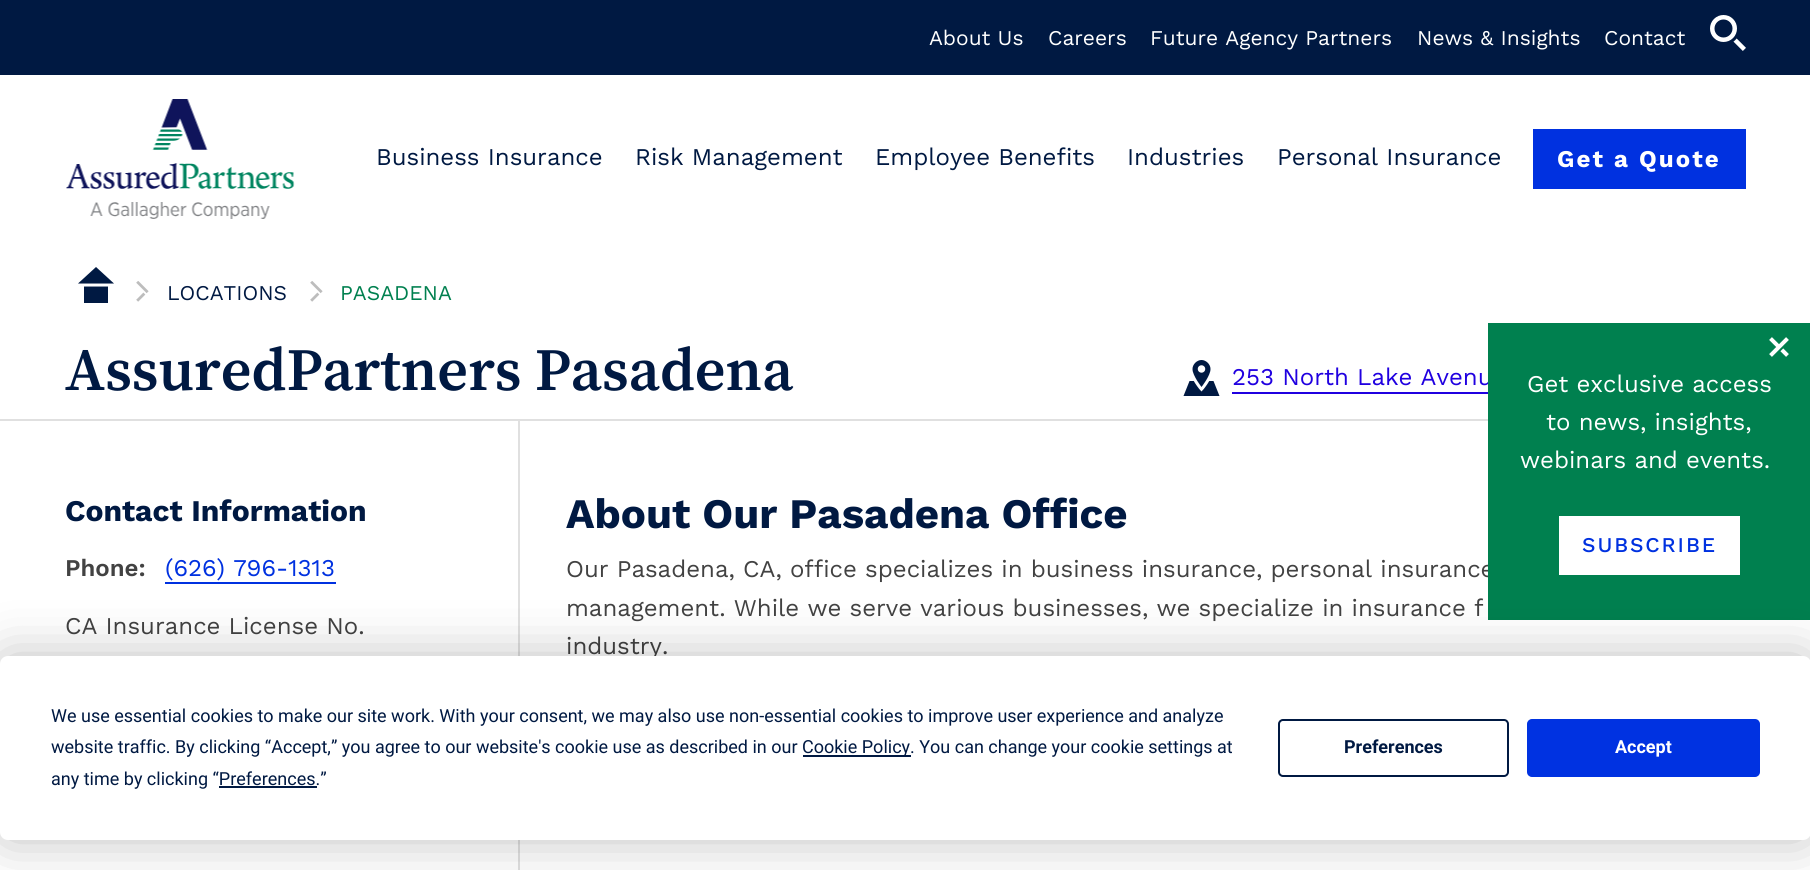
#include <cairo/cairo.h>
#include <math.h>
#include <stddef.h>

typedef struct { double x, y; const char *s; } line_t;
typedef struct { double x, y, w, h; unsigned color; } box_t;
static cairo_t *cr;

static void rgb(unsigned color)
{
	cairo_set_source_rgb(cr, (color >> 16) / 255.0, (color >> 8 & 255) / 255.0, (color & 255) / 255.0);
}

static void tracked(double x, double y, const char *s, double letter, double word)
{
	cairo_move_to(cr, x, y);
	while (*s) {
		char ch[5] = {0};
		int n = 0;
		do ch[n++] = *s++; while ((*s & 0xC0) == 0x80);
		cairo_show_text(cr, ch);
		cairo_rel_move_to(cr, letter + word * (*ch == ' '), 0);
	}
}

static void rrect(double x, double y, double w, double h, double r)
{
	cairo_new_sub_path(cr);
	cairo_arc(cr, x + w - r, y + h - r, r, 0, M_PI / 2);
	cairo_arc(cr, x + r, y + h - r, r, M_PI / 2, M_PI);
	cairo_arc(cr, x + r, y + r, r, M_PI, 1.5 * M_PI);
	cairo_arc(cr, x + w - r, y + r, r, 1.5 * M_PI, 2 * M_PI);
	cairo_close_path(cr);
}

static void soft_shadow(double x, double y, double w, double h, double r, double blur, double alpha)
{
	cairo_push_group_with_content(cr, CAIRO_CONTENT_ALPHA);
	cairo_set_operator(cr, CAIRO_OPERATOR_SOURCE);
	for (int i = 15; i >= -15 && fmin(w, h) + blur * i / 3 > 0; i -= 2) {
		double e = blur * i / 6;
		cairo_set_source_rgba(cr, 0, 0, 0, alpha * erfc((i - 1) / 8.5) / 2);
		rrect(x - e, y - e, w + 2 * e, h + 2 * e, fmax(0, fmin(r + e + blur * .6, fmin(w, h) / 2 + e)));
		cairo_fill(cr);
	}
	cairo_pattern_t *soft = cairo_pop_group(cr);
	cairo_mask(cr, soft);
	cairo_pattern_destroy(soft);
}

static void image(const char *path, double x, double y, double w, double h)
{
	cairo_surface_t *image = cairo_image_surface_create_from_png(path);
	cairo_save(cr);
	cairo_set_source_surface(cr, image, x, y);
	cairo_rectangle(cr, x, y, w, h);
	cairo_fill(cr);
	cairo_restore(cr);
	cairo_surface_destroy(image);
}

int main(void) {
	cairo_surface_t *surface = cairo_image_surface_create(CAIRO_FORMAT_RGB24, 1810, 870);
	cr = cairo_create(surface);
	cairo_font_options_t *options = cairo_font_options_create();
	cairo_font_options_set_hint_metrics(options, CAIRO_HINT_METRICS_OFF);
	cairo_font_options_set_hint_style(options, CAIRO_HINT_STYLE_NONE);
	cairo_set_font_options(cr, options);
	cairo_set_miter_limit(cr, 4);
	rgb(0xffffff);
	cairo_paint(cr);
	rgb(0x001942);
	cairo_rectangle(cr, 0, 0, 1810, 75);
	cairo_fill(cr);
	image("img/1.png", 1710, 15, 36, 36);
	image("img/2.png", 66, 99, 229, 120);
	rgb(0x0031e0);
	cairo_rectangle(cr, 1533, 129, 213, 60);
	cairo_fill(cr);
	rgb(0x001942);
	cairo_new_path(cr);
	cairo_move_to(cr, 108, 303);
	cairo_line_to(cr, 84, 303);
	cairo_line_to(cr, 84, 286.5);
	cairo_line_to(cr, 108, 286.5);
	cairo_close_path(cr);
	cairo_move_to(cr, 96, 267);
	cairo_line_to(cr, 78, 283.5);
	cairo_line_to(cr, 114, 283.5);
	cairo_close_path(cr);
	cairo_fill(cr);
	image("img/3.png", 136, 281, 13, 21);
	image("img/3.png", 310, 281, 13, 21);
	image("img/5.png", 1183, 360, 37, 36);
	{
		static const box_t items[] = {
			{1232, 392, 256, 2, 0x2000e0},
			{0, 419, 1488, 2, 0xe0e0e0},
			{518, 420, 2, 450, 0xe0e0e0},
			{165, 582, 171, 2, 0x0031e0},
		};
		for (size_t i = 0; i < sizeof items / sizeof *items; i++) {
			rgb(items[i].color);
			cairo_rectangle(cr, items[i].x, items[i].y, items[i].w, items[i].h);
			cairo_fill(cr);
		}
	}
	cairo_select_font_face(cr, "Work Sans", CAIRO_FONT_SLANT_NORMAL, CAIRO_FONT_WEIGHT_NORMAL);
	cairo_set_font_size(cr, 21);
	rgb(0xffffff);
	{
		static const line_t items[] = {
			{929, 45, "About Us"},
			{1048, 45, "Careers"},
			{1150, 45, "Future Agency Partners"},
			{1417, 45, "News & Insights"},
			{1604, 45, "Contact"},
		};
		for (size_t i = 0; i < sizeof items / sizeof *items; i++) {
			cairo_move_to(cr, items[i].x, items[i].y);
			cairo_show_text(cr, items[i].s);
		}
	}
	cairo_set_font_size(cr, 24);
	rgb(0x001942);
	{
		static const line_t items[] = {
			{376, 165, "Business Insurance"},
			{635, 165, "Risk Management"},
			{875, 165, "Employee Benefits"},
			{1127, 165, "Industries"},
			{1277, 165, "Personal Insurance"},
		};
		for (size_t i = 0; i < sizeof items / sizeof *items; i++) {
			cairo_move_to(cr, items[i].x, items[i].y);
			cairo_show_text(cr, items[i].s);
		}
	}
	cairo_select_font_face(cr, "Work Sans", CAIRO_FONT_SLANT_NORMAL, CAIRO_FONT_WEIGHT_BOLD);
	rgb(0xffffff);
	tracked(1557, 167, "Get a Quote", 2.1, 0);
	cairo_select_font_face(cr, "Work Sans", CAIRO_FONT_SLANT_NORMAL, CAIRO_FONT_WEIGHT_NORMAL);
	cairo_set_font_size(cr, 21);
	rgb(0x001942);
	cairo_move_to(cr, 167, 300);
	cairo_show_text(cr, "LOCATIONS");
	rgb(0x00804f);
	cairo_move_to(cr, 340, 300);
	cairo_show_text(cr, "PASADENA");
	cairo_select_font_face(cr, "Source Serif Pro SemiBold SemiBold", CAIRO_FONT_SLANT_NORMAL, CAIRO_FONT_WEIGHT_NORMAL);
	cairo_set_font_size(cr, 60);
	rgb(0x001942);
	cairo_move_to(cr, 65, 390);
	cairo_show_text(cr, "AssuredPartners Pasadena");
	cairo_select_font_face(cr, "Work Sans", CAIRO_FONT_SLANT_NORMAL, CAIRO_FONT_WEIGHT_NORMAL);
	cairo_set_font_size(cr, 24);
	rgb(0x2000e0);
	cairo_move_to(cr, 1232, 385);
	cairo_show_text(cr, "253 North Lake Avenu");
	cairo_select_font_face(cr, "Work Sans", CAIRO_FONT_SLANT_NORMAL, CAIRO_FONT_WEIGHT_BOLD);
	cairo_set_font_size(cr, 30);
	rgb(0x001942);
	cairo_move_to(cr, 65, 521);
	cairo_show_text(cr, "Contact Information");
	cairo_select_font_face(cr, "Work Sans SemiBold", CAIRO_FONT_SLANT_NORMAL, CAIRO_FONT_WEIGHT_NORMAL);
	cairo_set_font_size(cr, 24);
	rgb(0x424242);
	cairo_move_to(cr, 65, 576);
	cairo_show_text(cr, "Phone:");
	cairo_select_font_face(cr, "Work Sans", CAIRO_FONT_SLANT_NORMAL, CAIRO_FONT_WEIGHT_NORMAL);
	rgb(0x0031e0);
	cairo_move_to(cr, 165, 576);
	cairo_show_text(cr, "(626) 796-1313");
	rgb(0x424242);
	cairo_move_to(cr, 65, 634);
	cairo_show_text(cr, "CA Insurance License No.");
	cairo_select_font_face(cr, "Work Sans", CAIRO_FONT_SLANT_NORMAL, CAIRO_FONT_WEIGHT_BOLD);
	cairo_set_font_size(cr, 42);
	rgb(0x001942);
	cairo_move_to(cr, 566, 528);
	cairo_show_text(cr, "About Our Pasadena Office");
	cairo_select_font_face(cr, "Work Sans", CAIRO_FONT_SLANT_NORMAL, CAIRO_FONT_WEIGHT_NORMAL);
	cairo_set_font_size(cr, 24);
	rgb(0x424242);
	cairo_move_to(cr, 566, 577);
	cairo_show_text(cr, "Our Pasadena, CA, office specializes in business insurance, personal insurance");
	rgb(0x00804f);
	cairo_rectangle(cr, 1488, 323, 322, 297);
	cairo_fill(cr);
	rgb(0xffffff);
	cairo_rectangle(cr, 1559, 516, 181, 59);
	cairo_fill(cr);
	cairo_select_font_face(cr, "Work Sans Medium", CAIRO_FONT_SLANT_NORMAL, CAIRO_FONT_WEIGHT_NORMAL);
	cairo_set_font_size(cr, 21);
	rgb(0x0031e0);
	tracked(1582, 552, "SUBSCRIBE", 1.9, 0);
	image("img/4.png", 1769, 337, 20, 20);
	cairo_select_font_face(cr, "Work Sans", CAIRO_FONT_SLANT_NORMAL, CAIRO_FONT_WEIGHT_NORMAL);
	cairo_set_font_size(cr, 24);
	rgb(0xffffff);
	{
		static const line_t items[] = {
			{1520, 468, "webinars and events."},
			{1546, 430, "to news, insights,"},
			{1527, 392, "Get exclusive access"},
		};
		for (size_t i = 0; i < sizeof items / sizeof *items; i++) {
			cairo_move_to(cr, items[i].x, items[i].y);
			cairo_show_text(cr, items[i].s);
		}
	}
	rgb(0x424242);
	cairo_move_to(cr, 566, 616);
	cairo_show_text(cr, "management. While we serve various businesses, we specialize in insurance f");
	cairo_move_to(cr, 566, 654);
	cairo_show_text(cr, "industry.");
	rgb(0x000000);
	soft_shadow(0, 656, 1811, 184, 8, 26, 0.25);
	rgb(0xffffff);
	rrect(0, 656, 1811, 184, 8);
	cairo_fill(cr);
	cairo_select_font_face(cr, "Roboto", CAIRO_FONT_SLANT_NORMAL, CAIRO_FONT_WEIGHT_NORMAL);
	cairo_set_font_size(cr, 18);
	rgb(0x001942);
	cairo_move_to(cr, 51, 722);
	cairo_show_text(cr, "We use essential cookies to make our site work. With your consent, we may also use non-essential cookies to improve user experience and analyze");
	cairo_move_to(cr, 51, 753);
	cairo_show_text(cr, "website traffic. By clicking “Accept,” you agree to our website's cookie use as described in our");
	cairo_rectangle(cr, 803, 755, 108, 2);
	cairo_fill(cr);
	cairo_move_to(cr, 802, 753);
	cairo_show_text(cr, "Cookie Policy. You can change your cookie settings at");
	cairo_move_to(cr, 51, 785);
	cairo_show_text(cr, "any time by clicking “Preferences.”");
	cairo_rectangle(cr, 219, 786, 98, 2);
	cairo_fill(cr);
	rrect(1279, 720, 229, 56, 4);
	cairo_stroke(cr);
	cairo_select_font_face(cr, "Roboto", CAIRO_FONT_SLANT_NORMAL, CAIRO_FONT_WEIGHT_BOLD);
	cairo_move_to(cr, 1344, 753);
	cairo_show_text(cr, "Preferences");
	rgb(0x0032e1);
	rrect(1528, 720, 231, 56, 4);
	cairo_fill_preserve(cr);
	cairo_stroke(cr);
	rgb(0xffffff);
	cairo_move_to(cr, 1615, 753);
	cairo_show_text(cr, "Accept");
	cairo_surface_write_to_png(surface, "page.png");
	cairo_font_options_destroy(options);
	cairo_destroy(cr);
	cairo_surface_destroy(surface);
	return 0;
}
